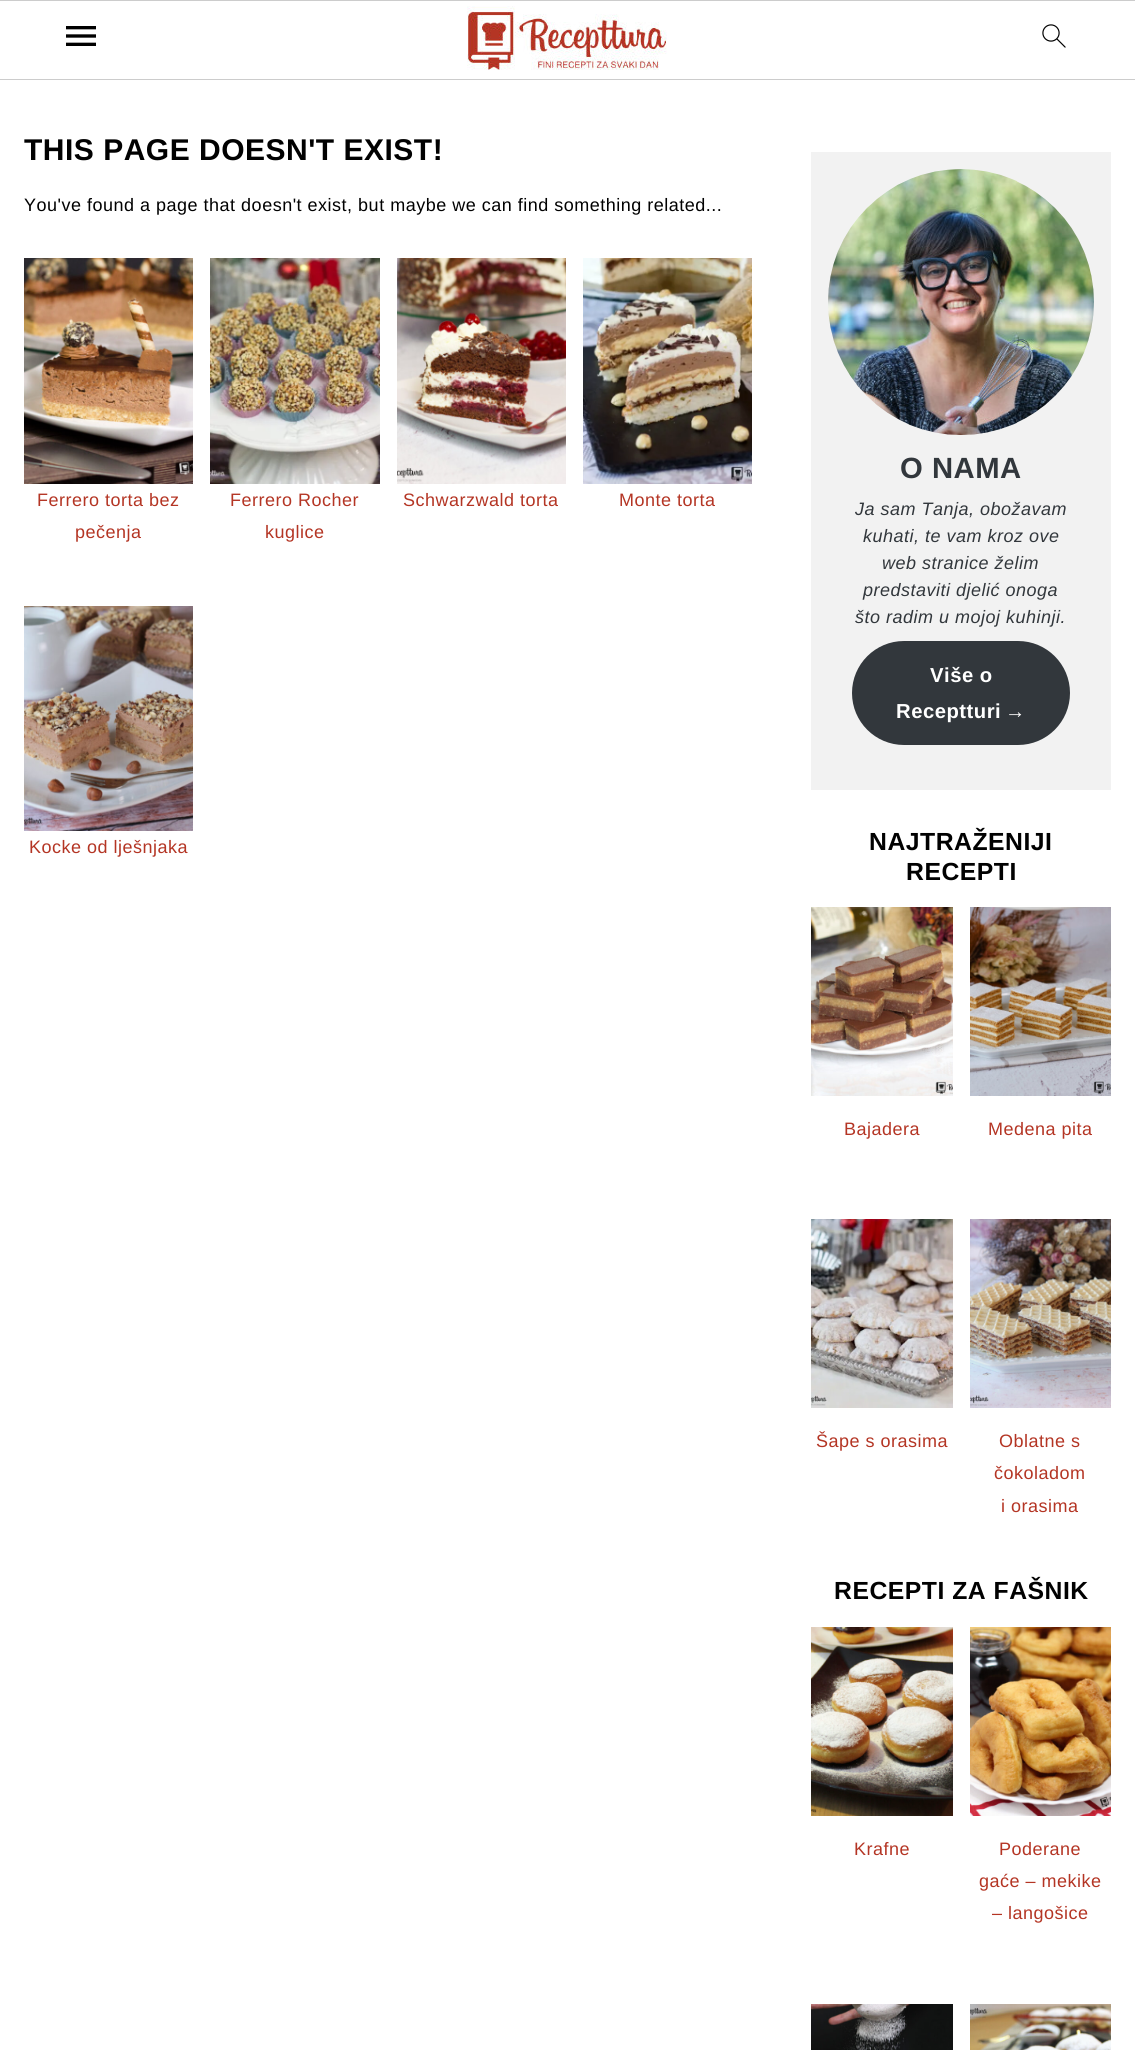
#include <cairo/cairo.h>
#include <math.h>
#include <stddef.h>

typedef struct { double x, y; const char *s; } line_t;
static cairo_t *cr;

static void rgb(unsigned color)
{
	cairo_set_source_rgb(cr, (color >> 16) / 255.0, (color >> 8 & 255) / 255.0, (color & 255) / 255.0);
}

static void tracked(double x, double y, const char *s, double letter, double word)
{
	cairo_move_to(cr, x, y);
	while (*s) {
		char ch[5] = {0};
		int n = 0;
		do ch[n++] = *s++; while ((*s & 0xC0) == 0x80);
		cairo_show_text(cr, ch);
		cairo_rel_move_to(cr, letter + word * (*ch == ' '), 0);
	}
}

static void rrect(double x, double y, double w, double h, double r)
{
	cairo_new_sub_path(cr);
	cairo_arc(cr, x + w - r, y + h - r, r, 0, M_PI / 2);
	cairo_arc(cr, x + r, y + h - r, r, M_PI / 2, M_PI);
	cairo_arc(cr, x + r, y + r, r, M_PI, 1.5 * M_PI);
	cairo_arc(cr, x + w - r, y + r, r, 1.5 * M_PI, 2 * M_PI);
	cairo_close_path(cr);
}

static void image(const char *path, double x, double y, double w, double h)
{
	cairo_surface_t *image = cairo_image_surface_create_from_png(path);
	cairo_save(cr);
	cairo_set_source_surface(cr, image, x, y);
	cairo_rectangle(cr, x, y, w, h);
	cairo_fill(cr);
	cairo_restore(cr);
	cairo_surface_destroy(image);
}

int main(void) {
	cairo_surface_t *surface = cairo_image_surface_create(CAIRO_FORMAT_RGB24, 1135, 2050);
	cr = cairo_create(surface);
	cairo_font_options_t *options = cairo_font_options_create();
	cairo_font_options_set_hint_metrics(options, CAIRO_HINT_METRICS_OFF);
	cairo_font_options_set_hint_style(options, CAIRO_HINT_STYLE_NONE);
	cairo_set_font_options(cr, options);
	cairo_set_miter_limit(cr, 4);
	rgb(0xffffff);
	cairo_paint(cr);
	rgb(0xcccccc);
	cairo_rectangle(cr, 0, 0, 1135, 1);
	cairo_fill(cr);
	cairo_rectangle(cr, 0, 79, 1135, 1);
	cairo_fill(cr);
	image("img/1.png", 66, 26, 30, 20);
	image("img/2.png", 467, 6, 200, 64);
	image("img/3.png", 1042, 24, 24, 24);
	image("img/4.png", 24, 258, 169, 226);
	image("img/5.png", 210, 258, 170, 226);
	image("img/6.png", 397, 258, 169, 226);
	image("img/7.png", 583, 258, 169, 226);
	image("img/8.png", 24, 606, 169, 225);
	rgb(0xf2f2f2);
	cairo_rectangle(cr, 811, 152, 300, 638);
	cairo_fill(cr);
	image("img/9.png", 828, 169, 266, 266);
	rgb(0x32373c);
	rrect(852, 641, 218, 104, 52);
	cairo_fill(cr);
	image("img/10.png", 811, 907, 142, 189);
	image("img/11.png", 970, 907, 141, 189);
	image("img/12.png", 811, 1219, 142, 189);
	image("img/13.png", 970, 1219, 141, 189);
	image("img/14.png", 811, 1627, 142, 189);
	image("img/15.png", 970, 1627, 141, 189);
	image("img/16.png", 811, 2004, 142, 46);
	image("img/17.png", 970, 2004, 141, 46);
	cairo_select_font_face(cr, "Liberation Sans", CAIRO_FONT_SLANT_NORMAL, CAIRO_FONT_WEIGHT_BOLD);
	cairo_set_font_size(cr, 30);
	rgb(0x010101);
	tracked(24, 160, "THIS PAGE DOESN'T EXIST!", 0.5, 0);
	cairo_select_font_face(cr, "Liberation Sans", CAIRO_FONT_SLANT_NORMAL, CAIRO_FONT_WEIGHT_NORMAL);
	cairo_set_font_size(cr, 18);
	tracked(24, 211, "You've found a page that doesn't exist, but maybe we can find something related...", 0.5, 0);
	rgb(0xb43524);
	{
		static const line_t items[] = {
			{37, 506, "Ferrero torta bez"},
			{75, 538, "pečenja"},
			{230, 506, "Ferrero Rocher"},
			{265, 538, "kuglice"},
			{403, 506, "Schwarzwald torta"},
			{619, 506, "Monte torta"},
			{29, 853, "Kocke od lješnjaka"},
		};
		for (size_t i = 0; i < sizeof items / sizeof *items; i++) {
			tracked(items[i].x, items[i].y, items[i].s, 0.5, 0);
		}
	}
	cairo_select_font_face(cr, "Liberation Sans", CAIRO_FONT_SLANT_NORMAL, CAIRO_FONT_WEIGHT_BOLD);
	cairo_set_font_size(cr, 29.25);
	rgb(0x32373c);
	tracked(900, 478, "O NAMA", 0.5, 0);
	cairo_select_font_face(cr, "Liberation Sans", CAIRO_FONT_SLANT_ITALIC, CAIRO_FONT_WEIGHT_NORMAL);
	cairo_set_font_size(cr, 18);
	{
		static const line_t items[] = {
			{855, 515, "Ja sam Tanja, obožavam"},
			{863, 542, "kuhati, te vam kroz ove"},
			{882, 569, "web stranice želim"},
			{863, 596, "predstaviti djelić onoga"},
			{855, 623, "što radim u mojoj kuhinji."},
		};
		for (size_t i = 0; i < sizeof items / sizeof *items; i++) {
			tracked(items[i].x, items[i].y, items[i].s, 0.5, 0);
		}
	}
	cairo_select_font_face(cr, "Liberation Sans", CAIRO_FONT_SLANT_NORMAL, CAIRO_FONT_WEIGHT_BOLD);
	cairo_set_font_size(cr, 20.25);
	rgb(0xffffff);
	{
		static const line_t items[] = {
			{930, 682, "Više o"},
			{896, 718, "Receptturi"},
			{1005, 718, "→"},
		};
		for (size_t i = 0; i < sizeof items / sizeof *items; i++) {
			tracked(items[i].x, items[i].y, items[i].s, 0.5, 0);
		}
	}
	cairo_set_font_size(cr, 24.75);
	rgb(0x010101);
	tracked(869, 850, "NAJTRAŽENIJI", 0.5, 0);
	tracked(906, 880, "RECEPTI", 0.5, 0);
	cairo_select_font_face(cr, "Liberation Sans", CAIRO_FONT_SLANT_NORMAL, CAIRO_FONT_WEIGHT_NORMAL);
	cairo_set_font_size(cr, 18);
	rgb(0xb43524);
	{
		static const line_t items[] = {
			{844, 1135, "Bajadera"},
			{988, 1135, "Medena pita"},
			{816, 1447, "Šape s orasima"},
			{999, 1447, "Oblatne s"},
			{994, 1479, "čokoladom"},
			{1001, 1512, "i orasima"},
		};
		for (size_t i = 0; i < sizeof items / sizeof *items; i++) {
			tracked(items[i].x, items[i].y, items[i].s, 0.5, 0);
		}
	}
	cairo_select_font_face(cr, "Liberation Sans", CAIRO_FONT_SLANT_NORMAL, CAIRO_FONT_WEIGHT_BOLD);
	cairo_set_font_size(cr, 24.75);
	rgb(0x010101);
	tracked(834, 1599, "RECEPTI ZA FAŠNIK", 0.5, 0);
	cairo_select_font_face(cr, "Liberation Sans", CAIRO_FONT_SLANT_NORMAL, CAIRO_FONT_WEIGHT_NORMAL);
	cairo_set_font_size(cr, 18);
	rgb(0xb43524);
	{
		static const line_t items[] = {
			{854, 1855, "Krafne"},
			{999, 1855, "Poderane"},
			{979, 1887, "gaće – mekike"},
			{992, 1919, "– langošice"},
		};
		for (size_t i = 0; i < sizeof items / sizeof *items; i++) {
			tracked(items[i].x, items[i].y, items[i].s, 0.5, 0);
		}
	}
	cairo_surface_write_to_png(surface, "page.png");
	cairo_font_options_destroy(options);
	cairo_destroy(cr);
	cairo_surface_destroy(surface);
	return 0;
}
